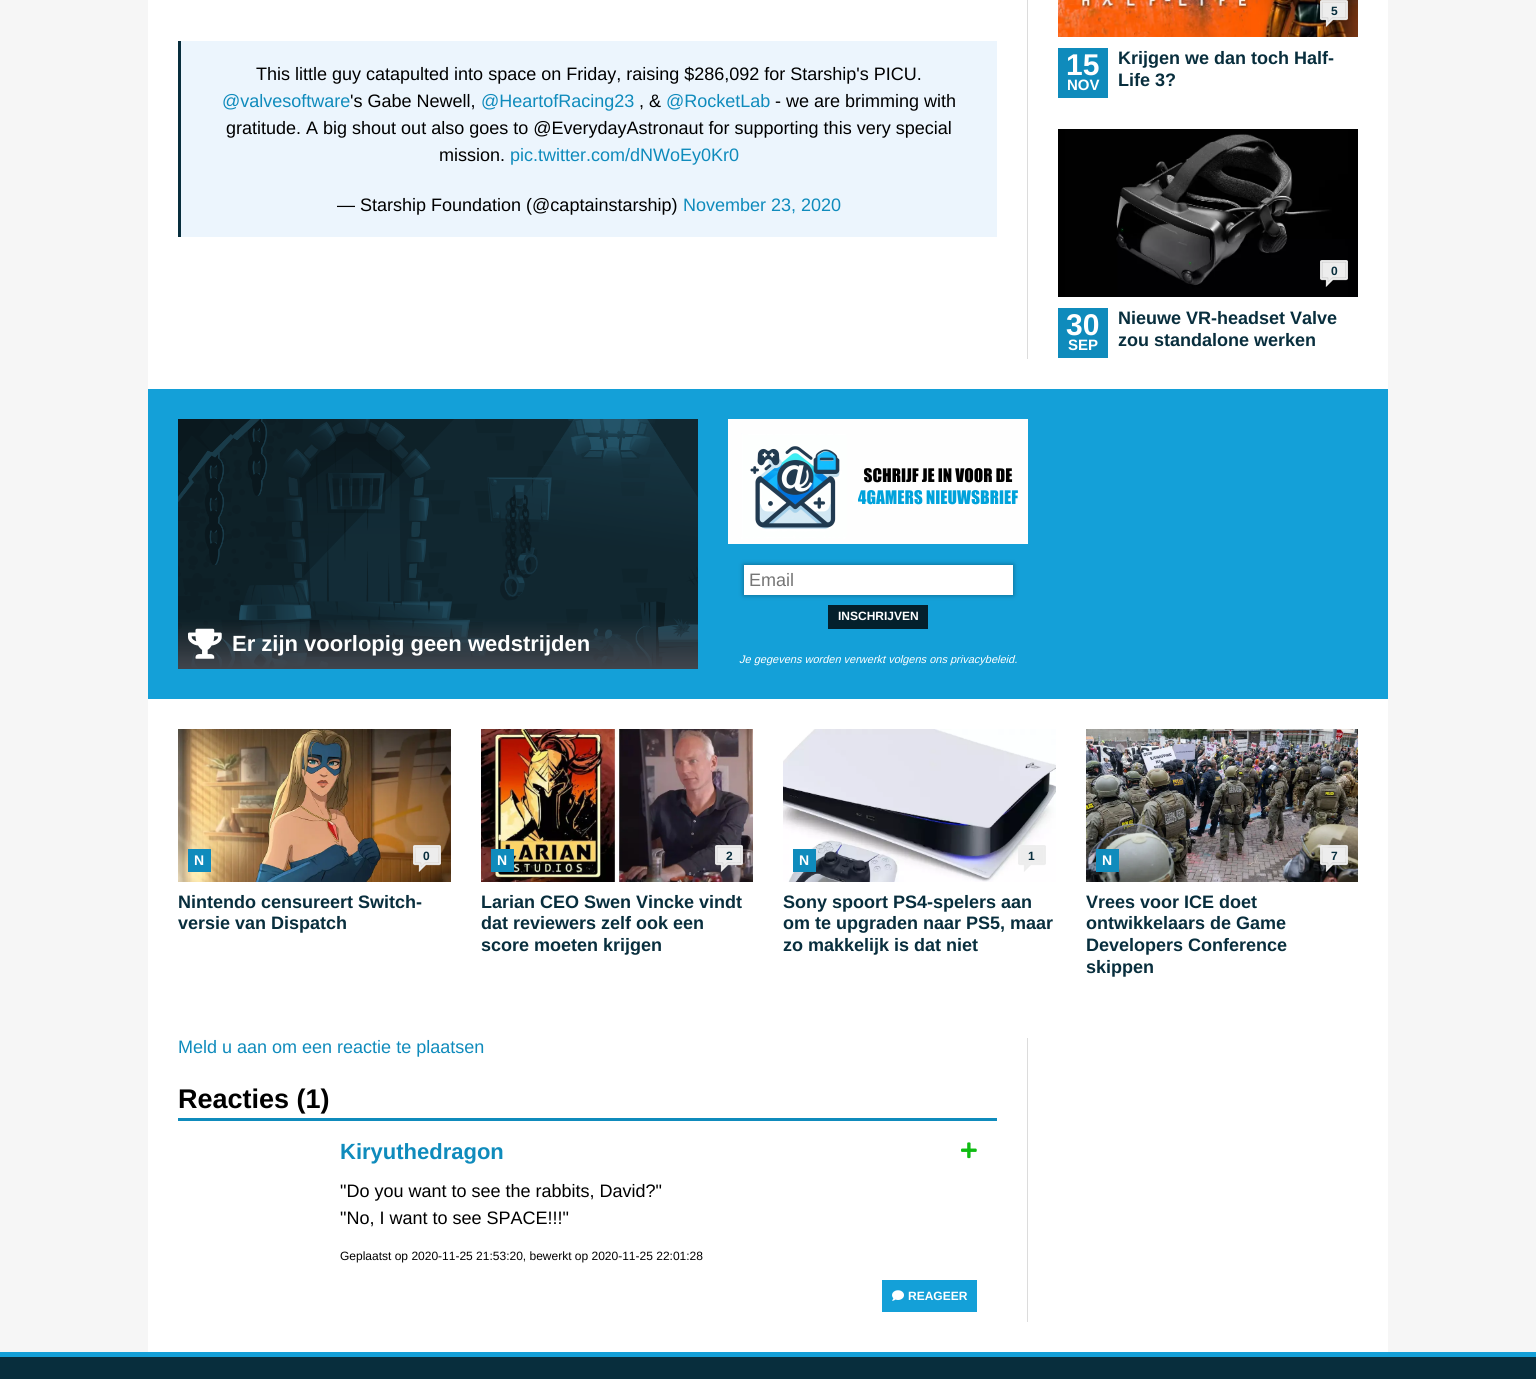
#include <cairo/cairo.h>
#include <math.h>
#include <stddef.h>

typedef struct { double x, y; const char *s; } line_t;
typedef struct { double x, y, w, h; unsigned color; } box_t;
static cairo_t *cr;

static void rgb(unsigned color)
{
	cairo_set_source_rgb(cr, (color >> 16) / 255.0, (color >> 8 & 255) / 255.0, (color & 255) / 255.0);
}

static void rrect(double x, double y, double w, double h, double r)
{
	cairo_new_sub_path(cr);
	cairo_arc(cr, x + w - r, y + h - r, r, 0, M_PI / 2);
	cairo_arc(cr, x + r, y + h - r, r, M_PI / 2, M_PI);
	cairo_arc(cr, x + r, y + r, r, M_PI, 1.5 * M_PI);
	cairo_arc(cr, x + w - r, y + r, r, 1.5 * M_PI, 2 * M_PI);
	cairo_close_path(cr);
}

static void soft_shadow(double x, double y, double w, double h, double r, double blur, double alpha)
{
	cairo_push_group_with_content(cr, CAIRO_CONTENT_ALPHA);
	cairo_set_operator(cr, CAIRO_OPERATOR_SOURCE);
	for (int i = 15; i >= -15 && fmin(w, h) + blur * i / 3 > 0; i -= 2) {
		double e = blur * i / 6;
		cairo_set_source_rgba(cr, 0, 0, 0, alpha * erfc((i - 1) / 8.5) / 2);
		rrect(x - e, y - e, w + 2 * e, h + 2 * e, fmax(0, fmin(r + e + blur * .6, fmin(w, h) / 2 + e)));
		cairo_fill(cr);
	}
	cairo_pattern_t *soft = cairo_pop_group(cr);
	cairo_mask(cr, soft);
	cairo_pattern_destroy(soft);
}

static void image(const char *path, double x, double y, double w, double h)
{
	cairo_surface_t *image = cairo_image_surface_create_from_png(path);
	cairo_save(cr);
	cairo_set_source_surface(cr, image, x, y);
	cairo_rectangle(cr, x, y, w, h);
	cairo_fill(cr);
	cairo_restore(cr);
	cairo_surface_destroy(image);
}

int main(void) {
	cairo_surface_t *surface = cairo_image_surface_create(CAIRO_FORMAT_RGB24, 1536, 1379);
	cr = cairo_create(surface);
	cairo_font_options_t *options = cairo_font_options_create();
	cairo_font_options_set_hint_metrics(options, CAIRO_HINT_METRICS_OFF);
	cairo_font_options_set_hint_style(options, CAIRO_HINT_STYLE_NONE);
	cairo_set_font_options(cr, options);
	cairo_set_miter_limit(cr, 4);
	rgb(0xf6f6f6);
	cairo_paint(cr);
	{
		static const box_t items[] = {
			{148, 0, 1240, 1352, 0xffffff},
			{181, 41, 816, 196, 0xecf5fd},
			{178, 41, 3, 196, 0x082e3d},
			{1027, 0, 1, 359, 0xdcdcdc},
		};
		for (size_t i = 0; i < sizeof items / sizeof *items; i++) {
			rgb(items[i].color);
			cairo_rectangle(cr, items[i].x, items[i].y, items[i].w, items[i].h);
			cairo_fill(cr);
		}
	}
	image("img/1.png", 1058, 0, 300, 37);
	image("img/2.png", 1320, 0, 28, 27);
	rgb(0x0f8bbc);
	cairo_rectangle(cr, 1058, 48, 50, 50);
	cairo_fill(cr);
	image("img/3.png", 1058, 129, 300, 168);
	image("img/4.png", 1320, 260, 28, 27);
	cairo_rectangle(cr, 1058, 308, 50, 50);
	cairo_fill(cr);
	rgb(0x14a0d8);
	cairo_rectangle(cr, 148, 389, 1240, 310);
	cairo_fill(cr);
	image("img/5.png", 178, 419, 520, 250);
	image("img/6.png", 188, 628, 34, 31);
	image("img/7.png", 728, 419, 300, 125);
	rgb(0x000000);
	soft_shadow(744, 565, 269, 30, 0, 2.5, 0.4);
	rgb(0xffffff);
	cairo_rectangle(cr, 744, 565, 269, 30);
	cairo_fill(cr);
	rgb(0x04202c);
	cairo_rectangle(cr, 828, 605, 100, 24);
	cairo_fill(cr);
	image("img/8.png", 178, 729, 273, 153);
	rgb(0x0f8bbc);
	cairo_rectangle(cr, 188, 849, 23, 23);
	cairo_fill(cr);
	image("img/9.png", 413, 845, 28, 27);
	image("img/10.png", 481, 729, 272, 153);
	cairo_rectangle(cr, 491, 849, 23, 23);
	cairo_fill(cr);
	image("img/11.png", 715, 845, 28, 27);
	image("img/12.png", 783, 729, 273, 153);
	cairo_rectangle(cr, 793, 849, 23, 23);
	cairo_fill(cr);
	image("img/13.png", 1018, 845, 28, 27);
	image("img/14.png", 1086, 729, 272, 153);
	cairo_rectangle(cr, 1096, 849, 23, 23);
	cairo_fill(cr);
	image("img/15.png", 1320, 845, 28, 27);
	cairo_rectangle(cr, 178, 1118, 819, 3);
	cairo_fill(cr);
	image("img/16.png", 961, 1142, 16, 17);
	rgb(0x14a0d8);
	cairo_rectangle(cr, 882, 1280, 95, 32);
	cairo_fill(cr);
	image("img/17.png", 892, 1290, 12, 11);
	{
		static const box_t items[] = {
			{1027, 1038, 1, 284, 0xdcdcdc},
			{0, 1357, 1536, 22, 0x082e3d},
			{0, 1352, 1536, 5, 0x14a0d8},
		};
		for (size_t i = 0; i < sizeof items / sizeof *items; i++) {
			rgb(items[i].color);
			cairo_rectangle(cr, items[i].x, items[i].y, items[i].w, items[i].h);
			cairo_fill(cr);
		}
	}
	cairo_select_font_face(cr, "Arimo", CAIRO_FONT_SLANT_NORMAL, CAIRO_FONT_WEIGHT_NORMAL);
	cairo_set_font_size(cr, 18);
	rgb(0x000000);
	cairo_move_to(cr, 256, 80);
	cairo_show_text(cr, "This little guy catapulted into space on Friday, raising $286,092 for Starship's PICU.");
	rgb(0x0f8bbc);
	cairo_move_to(cr, 222, 107);
	cairo_show_text(cr, "@valvesoftware");
	rgb(0x000000);
	cairo_move_to(cr, 350, 107);
	cairo_show_text(cr, "'s Gabe Newell,");
	rgb(0x0f8bbc);
	cairo_move_to(cr, 481, 107);
	cairo_show_text(cr, "@HeartofRacing23");
	rgb(0x000000);
	cairo_move_to(cr, 639, 107);
	cairo_show_text(cr, ", &");
	rgb(0x0f8bbc);
	cairo_move_to(cr, 666, 107);
	cairo_show_text(cr, "@RocketLab");
	rgb(0x000000);
	{
		static const line_t items[] = {
			{775, 107, "- we are brimming with"},
			{226, 134, "gratitude. A big shout out also goes to @EverydayAstronaut for supporting this very special"},
			{439, 161, "mission."},
		};
		for (size_t i = 0; i < sizeof items / sizeof *items; i++) {
			cairo_move_to(cr, items[i].x, items[i].y);
			cairo_show_text(cr, items[i].s);
		}
	}
	rgb(0x0f8bbc);
	cairo_move_to(cr, 510, 161);
	cairo_show_text(cr, "pic.twitter.com/dNWoEy0Kr0");
	rgb(0x000000);
	cairo_move_to(cr, 337, 211);
	cairo_show_text(cr, "— Starship Foundation (@captainstarship)");
	rgb(0x0f8bbc);
	cairo_move_to(cr, 683, 211);
	cairo_show_text(cr, "November 23, 2020");
	cairo_select_font_face(cr, "Arimo", CAIRO_FONT_SLANT_NORMAL, CAIRO_FONT_WEIGHT_BOLD);
	cairo_set_font_size(cr, 12);
	rgb(0x082e3d);
	cairo_move_to(cr, 1331, 15);
	cairo_show_text(cr, "5");
	cairo_set_font_size(cr, 30);
	rgb(0xffffff);
	cairo_move_to(cr, 1066, 75);
	cairo_show_text(cr, "15");
	cairo_set_font_size(cr, 15);
	cairo_move_to(cr, 1067, 90);
	cairo_show_text(cr, "NOV");
	cairo_set_font_size(cr, 18);
	rgb(0x082e3d);
	cairo_move_to(cr, 1118, 64);
	cairo_show_text(cr, "Krijgen we dan toch Half-");
	cairo_move_to(cr, 1118, 86);
	cairo_show_text(cr, "Life 3?");
	cairo_set_font_size(cr, 12);
	cairo_move_to(cr, 1331, 275);
	cairo_show_text(cr, "0");
	cairo_set_font_size(cr, 30);
	rgb(0xffffff);
	cairo_move_to(cr, 1066, 335);
	cairo_show_text(cr, "30");
	cairo_set_font_size(cr, 15);
	cairo_move_to(cr, 1068, 350);
	cairo_show_text(cr, "SEP");
	cairo_set_font_size(cr, 18);
	rgb(0x082e3d);
	cairo_move_to(cr, 1118, 324);
	cairo_show_text(cr, "Nieuwe VR-headset Valve");
	cairo_move_to(cr, 1118, 346);
	cairo_show_text(cr, "zou standalone werken");
	cairo_set_font_size(cr, 22);
	rgb(0xffffff);
	cairo_move_to(cr, 232, 651);
	cairo_show_text(cr, "Er zijn voorlopig geen wedstrijden");
	cairo_select_font_face(cr, "Arimo", CAIRO_FONT_SLANT_NORMAL, CAIRO_FONT_WEIGHT_NORMAL);
	cairo_set_font_size(cr, 18);
	rgb(0x757575);
	cairo_move_to(cr, 749, 586);
	cairo_show_text(cr, "Email");
	cairo_select_font_face(cr, "Arimo", CAIRO_FONT_SLANT_NORMAL, CAIRO_FONT_WEIGHT_BOLD);
	cairo_set_font_size(cr, 12);
	rgb(0xffffff);
	cairo_move_to(cr, 838, 620);
	cairo_show_text(cr, "INSCHRIJVEN");
	cairo_select_font_face(cr, "Arimo", CAIRO_FONT_SLANT_ITALIC, CAIRO_FONT_WEIGHT_NORMAL);
	cairo_set_font_size(cr, 11);
	cairo_move_to(cr, 739, 663);
	cairo_show_text(cr, "Je gegevens worden verwerkt volgens ons privacybeleid.");
	cairo_select_font_face(cr, "Arimo", CAIRO_FONT_SLANT_NORMAL, CAIRO_FONT_WEIGHT_BOLD);
	cairo_set_font_size(cr, 14);
	cairo_move_to(cr, 194, 865);
	cairo_show_text(cr, "N");
	cairo_set_font_size(cr, 12);
	rgb(0x082e3d);
	cairo_move_to(cr, 423, 860);
	cairo_show_text(cr, "0");
	cairo_set_font_size(cr, 18);
	cairo_move_to(cr, 178, 908);
	cairo_show_text(cr, "Nintendo censureert Switch-");
	cairo_move_to(cr, 178, 929);
	cairo_show_text(cr, "versie van Dispatch");
	cairo_set_font_size(cr, 14);
	rgb(0xffffff);
	cairo_move_to(cr, 497, 865);
	cairo_show_text(cr, "N");
	cairo_set_font_size(cr, 12);
	rgb(0x082e3d);
	cairo_move_to(cr, 726, 860);
	cairo_show_text(cr, "2");
	cairo_set_font_size(cr, 18);
	{
		static const line_t items[] = {
			{481, 908, "Larian CEO Swen Vincke vindt"},
			{481, 929, "dat reviewers zelf ook een"},
			{481, 951, "score moeten krijgen"},
		};
		for (size_t i = 0; i < sizeof items / sizeof *items; i++) {
			cairo_move_to(cr, items[i].x, items[i].y);
			cairo_show_text(cr, items[i].s);
		}
	}
	cairo_set_font_size(cr, 14);
	rgb(0xffffff);
	cairo_move_to(cr, 799, 865);
	cairo_show_text(cr, "N");
	cairo_set_font_size(cr, 12);
	rgb(0x082e3d);
	cairo_move_to(cr, 1028, 860);
	cairo_show_text(cr, "1");
	cairo_set_font_size(cr, 18);
	{
		static const line_t items[] = {
			{783, 908, "Sony spoort PS4-spelers aan"},
			{783, 929, "om te upgraden naar PS5, maar"},
			{783, 951, "zo makkelijk is dat niet"},
		};
		for (size_t i = 0; i < sizeof items / sizeof *items; i++) {
			cairo_move_to(cr, items[i].x, items[i].y);
			cairo_show_text(cr, items[i].s);
		}
	}
	cairo_set_font_size(cr, 14);
	rgb(0xffffff);
	cairo_move_to(cr, 1102, 865);
	cairo_show_text(cr, "N");
	cairo_set_font_size(cr, 12);
	rgb(0x082e3d);
	cairo_move_to(cr, 1331, 860);
	cairo_show_text(cr, "7");
	cairo_set_font_size(cr, 18);
	{
		static const line_t items[] = {
			{1086, 908, "Vrees voor ICE doet"},
			{1086, 929, "ontwikkelaars de Game"},
			{1086, 951, "Developers Conference"},
			{1086, 973, "skippen"},
		};
		for (size_t i = 0; i < sizeof items / sizeof *items; i++) {
			cairo_move_to(cr, items[i].x, items[i].y);
			cairo_show_text(cr, items[i].s);
		}
	}
	cairo_select_font_face(cr, "Arimo", CAIRO_FONT_SLANT_NORMAL, CAIRO_FONT_WEIGHT_NORMAL);
	rgb(0x0f8bbc);
	cairo_move_to(cr, 178, 1053);
	cairo_show_text(cr, "Meld u aan om een reactie te plaatsen");
	cairo_select_font_face(cr, "Arimo", CAIRO_FONT_SLANT_NORMAL, CAIRO_FONT_WEIGHT_BOLD);
	cairo_set_font_size(cr, 27);
	rgb(0x000000);
	cairo_move_to(cr, 178, 1108);
	cairo_show_text(cr, "Reacties (1)");
	cairo_set_font_size(cr, 22);
	rgb(0x0f8bbc);
	cairo_move_to(cr, 340, 1159);
	cairo_show_text(cr, "Kiryuthedragon");
	cairo_select_font_face(cr, "Arimo", CAIRO_FONT_SLANT_NORMAL, CAIRO_FONT_WEIGHT_NORMAL);
	cairo_set_font_size(cr, 18);
	rgb(0x000000);
	cairo_move_to(cr, 340, 1197);
	cairo_show_text(cr, "\"Do you want to see the rabbits, David?\"");
	cairo_move_to(cr, 340, 1224);
	cairo_show_text(cr, "\"No, I want to see SPACE!!!\"");
	cairo_set_font_size(cr, 12);
	cairo_move_to(cr, 340, 1260);
	cairo_show_text(cr, "Geplaatst op 2020-11-25 21:53:20, bewerkt op 2020-11-25 22:01:28");
	cairo_select_font_face(cr, "Arimo", CAIRO_FONT_SLANT_NORMAL, CAIRO_FONT_WEIGHT_BOLD);
	rgb(0xffffff);
	cairo_move_to(cr, 908, 1300);
	cairo_show_text(cr, "REAGEER");
	cairo_surface_write_to_png(surface, "page.png");
	cairo_font_options_destroy(options);
	cairo_destroy(cr);
	cairo_surface_destroy(surface);
	return 0;
}
